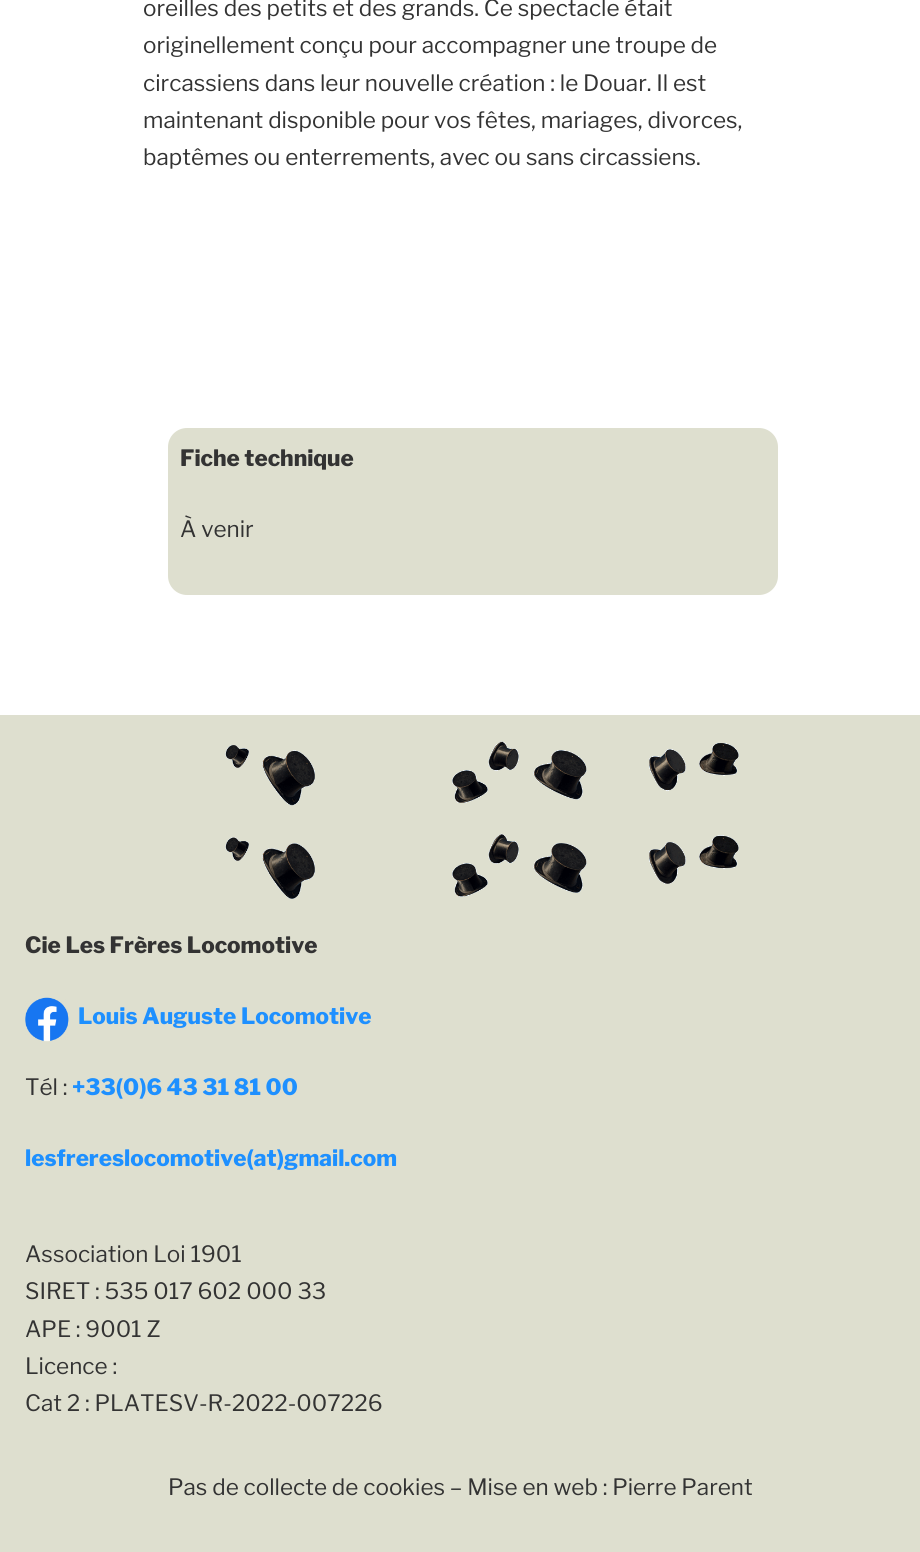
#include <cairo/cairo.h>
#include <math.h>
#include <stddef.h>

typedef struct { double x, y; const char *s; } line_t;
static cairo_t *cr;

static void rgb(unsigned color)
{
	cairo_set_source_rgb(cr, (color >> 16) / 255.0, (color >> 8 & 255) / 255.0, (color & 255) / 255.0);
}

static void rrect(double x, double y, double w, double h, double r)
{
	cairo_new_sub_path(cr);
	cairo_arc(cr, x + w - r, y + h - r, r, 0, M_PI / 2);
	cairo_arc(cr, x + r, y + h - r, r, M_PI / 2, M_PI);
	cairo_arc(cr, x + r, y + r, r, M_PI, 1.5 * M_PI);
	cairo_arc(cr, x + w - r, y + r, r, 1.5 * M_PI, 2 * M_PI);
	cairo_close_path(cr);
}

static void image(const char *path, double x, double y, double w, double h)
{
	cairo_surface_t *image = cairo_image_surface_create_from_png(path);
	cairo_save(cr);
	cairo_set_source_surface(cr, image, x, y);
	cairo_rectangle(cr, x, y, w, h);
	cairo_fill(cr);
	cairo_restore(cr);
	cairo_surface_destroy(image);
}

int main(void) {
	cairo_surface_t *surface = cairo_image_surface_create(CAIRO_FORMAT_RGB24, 920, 1552);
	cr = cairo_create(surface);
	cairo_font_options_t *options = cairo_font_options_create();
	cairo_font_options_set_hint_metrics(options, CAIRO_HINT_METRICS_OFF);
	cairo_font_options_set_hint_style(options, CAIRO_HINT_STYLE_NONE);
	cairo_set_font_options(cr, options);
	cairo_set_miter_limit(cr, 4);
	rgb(0xffffff);
	cairo_paint(cr);
	rgb(0xdedfcf);
	rrect(168, 428, 610, 167, 19);
	cairo_fill(cr);
	cairo_rectangle(cr, 0, 715, 920, 837);
	cairo_fill(cr);
	image("img/1.png", 225, 741, 514, 65);
	image("img/2.png", 225, 833, 514, 66);
	image("img/3.png", 25, 997, 44, 45);
	cairo_select_font_face(cr, "Libre Franklin Thin", CAIRO_FONT_SLANT_NORMAL, CAIRO_FONT_WEIGHT_NORMAL);
	cairo_set_font_size(cr, 22.5);
	rgb(0x333333);
	{
		static const line_t items[] = {
			{143, 16, "oreilles des petits et des grands. Ce spectacle était"},
			{143, 53, "originellement conçu pour accompagner une troupe de"},
			{143, 91, "circassiens dans leur nouvelle création : le Douar. Il est"},
			{143, 128, "maintenant disponible pour vos fêtes, mariages, divorces,"},
			{143, 165, "baptêmes ou enterrements, avec ou sans circassiens."},
		};
		for (size_t i = 0; i < sizeof items / sizeof *items; i++) {
			cairo_move_to(cr, items[i].x, items[i].y);
			cairo_show_text(cr, items[i].s);
		}
	}
	cairo_select_font_face(cr, "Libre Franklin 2 Thin", CAIRO_FONT_SLANT_NORMAL, CAIRO_FONT_WEIGHT_NORMAL);
	cairo_move_to(cr, 180, 466);
	cairo_show_text(cr, "Fiche technique");
	cairo_select_font_face(cr, "Libre Franklin Thin", CAIRO_FONT_SLANT_NORMAL, CAIRO_FONT_WEIGHT_NORMAL);
	cairo_move_to(cr, 180, 537);
	cairo_show_text(cr, "À venir");
	cairo_select_font_face(cr, "Libre Franklin 2 Thin", CAIRO_FONT_SLANT_NORMAL, CAIRO_FONT_WEIGHT_NORMAL);
	cairo_move_to(cr, 25, 953);
	cairo_show_text(cr, "Cie Les Frères Locomotive");
	rgb(0x1e90ff);
	cairo_move_to(cr, 78, 1024);
	cairo_show_text(cr, "Louis Auguste Locomotive");
	cairo_select_font_face(cr, "Libre Franklin Thin", CAIRO_FONT_SLANT_NORMAL, CAIRO_FONT_WEIGHT_NORMAL);
	rgb(0x333333);
	cairo_move_to(cr, 25, 1095);
	cairo_show_text(cr, "Tél :");
	cairo_select_font_face(cr, "Libre Franklin 2 Thin", CAIRO_FONT_SLANT_NORMAL, CAIRO_FONT_WEIGHT_NORMAL);
	rgb(0x1e90ff);
	cairo_move_to(cr, 72, 1095);
	cairo_show_text(cr, "+33(0)6 43 31 81 00");
	cairo_move_to(cr, 25, 1166);
	cairo_show_text(cr, "lesfrereslocomotive(at)gmail.com");
	cairo_select_font_face(cr, "Libre Franklin Thin", CAIRO_FONT_SLANT_NORMAL, CAIRO_FONT_WEIGHT_NORMAL);
	rgb(0x333333);
	{
		static const line_t items[] = {
			{25, 1262, "Association Loi 1901"},
			{25, 1299, "SIRET : 535 017 602 000 33"},
			{25, 1337, "APE : 9001 Z"},
			{25, 1374, "Licence :"},
			{25, 1411, "Cat 2 : PLATESV-R-2022-007226"},
			{168, 1495, "Pas de collecte de cookies – Mise en web : Pierre Parent"},
		};
		for (size_t i = 0; i < sizeof items / sizeof *items; i++) {
			cairo_move_to(cr, items[i].x, items[i].y);
			cairo_show_text(cr, items[i].s);
		}
	}
	cairo_surface_write_to_png(surface, "page.png");
	cairo_font_options_destroy(options);
	cairo_destroy(cr);
	cairo_surface_destroy(surface);
	return 0;
}
